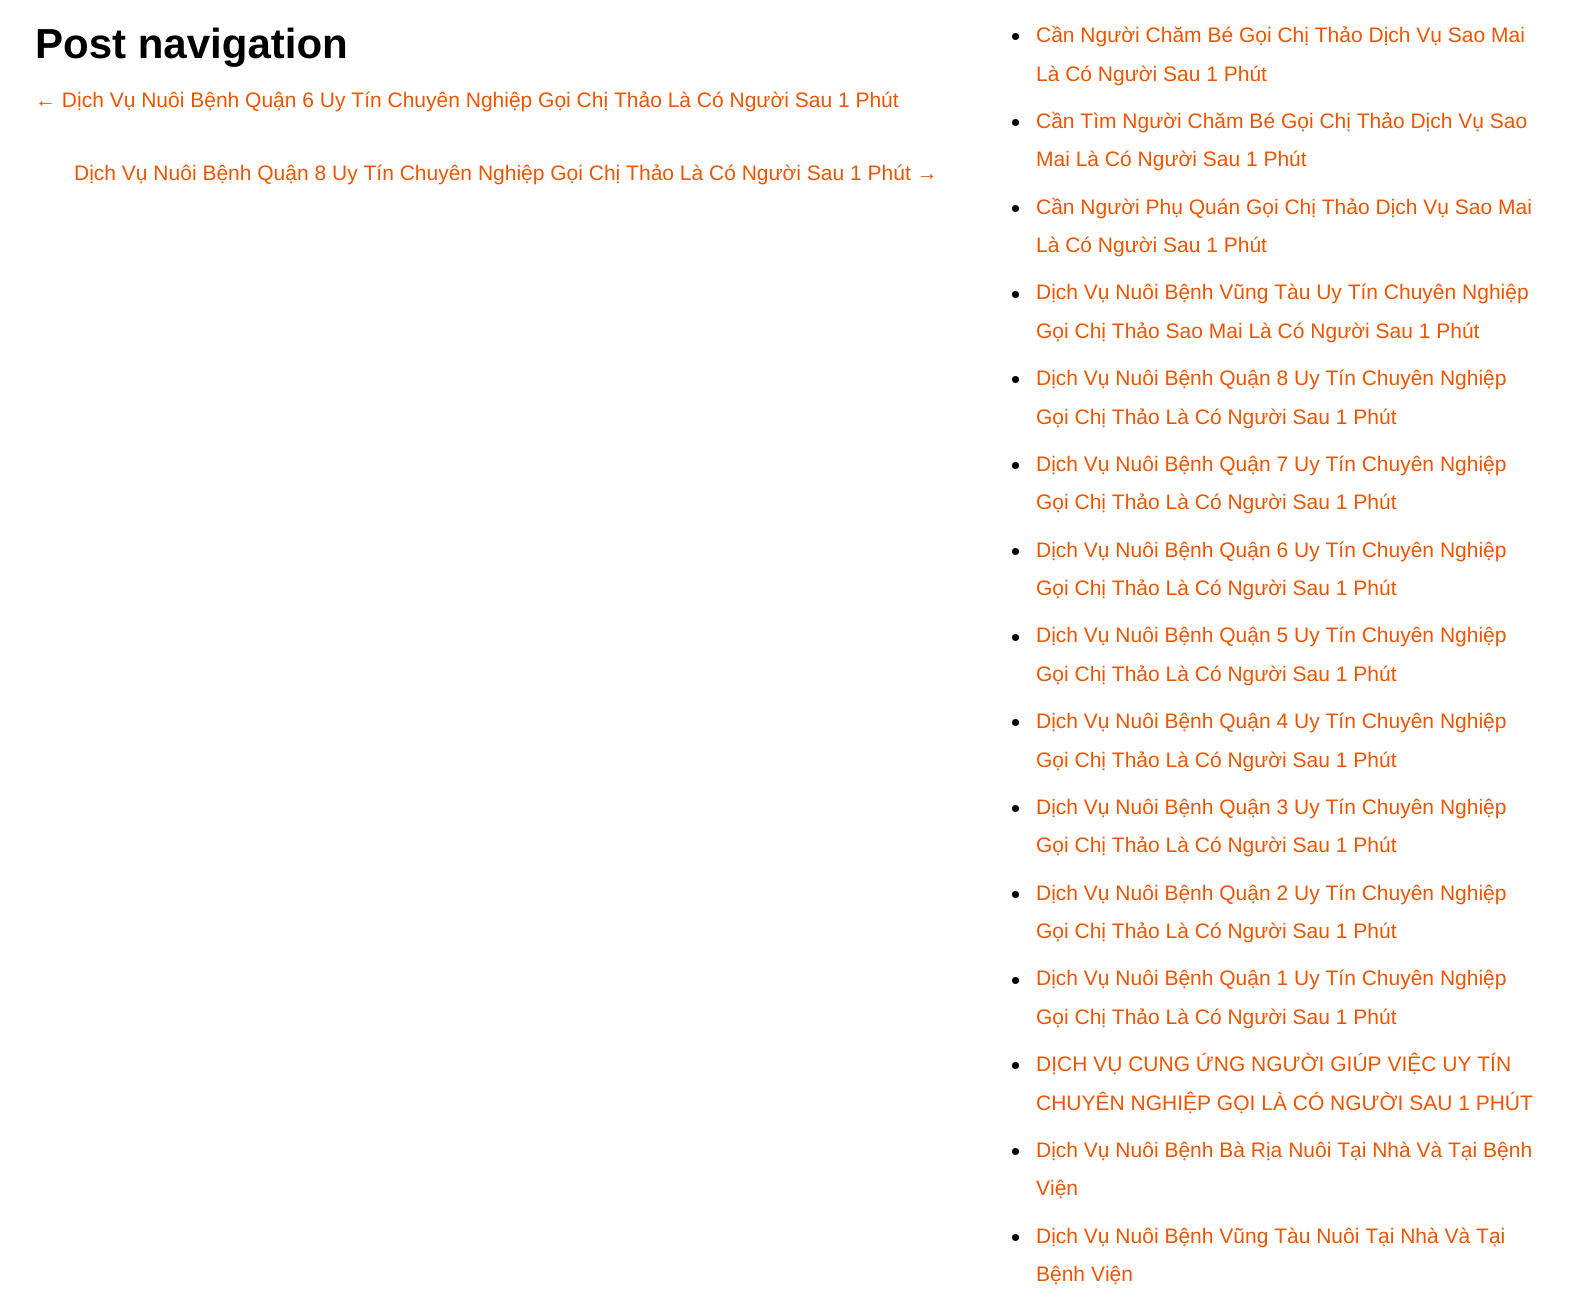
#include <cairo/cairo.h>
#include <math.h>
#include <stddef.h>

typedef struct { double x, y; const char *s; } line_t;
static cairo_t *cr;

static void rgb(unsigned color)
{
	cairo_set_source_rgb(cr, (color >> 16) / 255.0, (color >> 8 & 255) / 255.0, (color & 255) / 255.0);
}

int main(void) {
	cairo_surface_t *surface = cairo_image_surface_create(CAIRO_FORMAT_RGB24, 1574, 1298);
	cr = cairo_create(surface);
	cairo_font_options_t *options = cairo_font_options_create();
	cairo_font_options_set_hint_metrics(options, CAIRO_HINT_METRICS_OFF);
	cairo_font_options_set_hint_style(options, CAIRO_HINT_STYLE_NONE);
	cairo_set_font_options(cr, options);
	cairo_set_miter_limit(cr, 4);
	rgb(0xffffff);
	cairo_paint(cr);
	rgb(0x000000);
	cairo_arc(cr, 1015.5, 36.5, 3.5, 0, 2 * M_PI);
	cairo_fill(cr);
	cairo_arc(cr, 1015.5, 122.5, 3.5, 0, 2 * M_PI);
	cairo_fill(cr);
	cairo_arc(cr, 1015.5, 208.5, 3.5, 0, 2 * M_PI);
	cairo_fill(cr);
	cairo_arc(cr, 1015.5, 294.5, 3.5, 0, 2 * M_PI);
	cairo_fill(cr);
	cairo_arc(cr, 1015.5, 379.5, 3.5, 0, 2 * M_PI);
	cairo_fill(cr);
	cairo_arc(cr, 1015.5, 465.5, 3.5, 0, 2 * M_PI);
	cairo_fill(cr);
	cairo_arc(cr, 1015.5, 551.5, 3.5, 0, 2 * M_PI);
	cairo_fill(cr);
	cairo_arc(cr, 1015.5, 637.5, 3.5, 0, 2 * M_PI);
	cairo_fill(cr);
	cairo_arc(cr, 1015.5, 722.5, 3.5, 0, 2 * M_PI);
	cairo_fill(cr);
	cairo_arc(cr, 1015.5, 808.5, 3.5, 0, 2 * M_PI);
	cairo_fill(cr);
	cairo_arc(cr, 1015.5, 894.5, 3.5, 0, 2 * M_PI);
	cairo_fill(cr);
	cairo_arc(cr, 1015.5, 980.5, 3.5, 0, 2 * M_PI);
	cairo_fill(cr);
	cairo_arc(cr, 1015.5, 1065.5, 3.5, 0, 2 * M_PI);
	cairo_fill(cr);
	cairo_arc(cr, 1015.5, 1151.5, 3.5, 0, 2 * M_PI);
	cairo_fill(cr);
	cairo_arc(cr, 1015.5, 1237.5, 3.5, 0, 2 * M_PI);
	cairo_fill(cr);
	cairo_select_font_face(cr, "Liberation Sans", CAIRO_FONT_SLANT_NORMAL, CAIRO_FONT_WEIGHT_BOLD);
	cairo_set_font_size(cr, 42);
	cairo_move_to(cr, 35, 58);
	cairo_show_text(cr, "Post navigation");
	cairo_select_font_face(cr, "Liberation Sans", CAIRO_FONT_SLANT_NORMAL, CAIRO_FONT_WEIGHT_NORMAL);
	cairo_set_font_size(cr, 21);
	rgb(0xed5501);
	{
		static const line_t items[] = {
			{35, 107, "← Dịch Vụ Nuôi Bệnh Quận 6 Uy Tín Chuyên Nghiệp Gọi Chị Thảo Là Có Người Sau 1 Phút"},
			{74, 180, "Dịch Vụ Nuôi Bệnh Quận 8 Uy Tín Chuyên Nghiệp Gọi Chị Thảo Là Có Người Sau 1 Phút →"},
			{1036, 42, "Cần Người Chăm Bé Gọi Chị Thảo Dịch Vụ Sao Mai"},
			{1036, 81, "Là Có Người Sau 1 Phút"},
			{1036, 128, "Cần Tìm Người Chăm Bé Gọi Chị Thảo Dịch Vụ Sao"},
			{1036, 166, "Mai Là Có Người Sau 1 Phút"},
			{1036, 214, "Cần Người Phụ Quán Gọi Chị Thảo Dịch Vụ Sao Mai"},
			{1036, 252, "Là Có Người Sau 1 Phút"},
			{1036, 299, "Dịch Vụ Nuôi Bệnh Vũng Tàu Uy Tín Chuyên Nghiệp"},
			{1036, 338, "Gọi Chị Thảo Sao Mai Là Có Người Sau 1 Phút"},
			{1036, 385, "Dịch Vụ Nuôi Bệnh Quận 8 Uy Tín Chuyên Nghiệp"},
			{1036, 424, "Gọi Chị Thảo Là Có Người Sau 1 Phút"},
			{1036, 471, "Dịch Vụ Nuôi Bệnh Quận 7 Uy Tín Chuyên Nghiệp"},
			{1036, 509, "Gọi Chị Thảo Là Có Người Sau 1 Phút"},
			{1036, 557, "Dịch Vụ Nuôi Bệnh Quận 6 Uy Tín Chuyên Nghiệp"},
			{1036, 595, "Gọi Chị Thảo Là Có Người Sau 1 Phút"},
			{1036, 642, "Dịch Vụ Nuôi Bệnh Quận 5 Uy Tín Chuyên Nghiệp"},
			{1036, 681, "Gọi Chị Thảo Là Có Người Sau 1 Phút"},
			{1036, 728, "Dịch Vụ Nuôi Bệnh Quận 4 Uy Tín Chuyên Nghiệp"},
			{1036, 767, "Gọi Chị Thảo Là Có Người Sau 1 Phút"},
			{1036, 814, "Dịch Vụ Nuôi Bệnh Quận 3 Uy Tín Chuyên Nghiệp"},
			{1036, 852, "Gọi Chị Thảo Là Có Người Sau 1 Phút"},
			{1036, 900, "Dịch Vụ Nuôi Bệnh Quận 2 Uy Tín Chuyên Nghiệp"},
			{1036, 938, "Gọi Chị Thảo Là Có Người Sau 1 Phút"},
			{1036, 985, "Dịch Vụ Nuôi Bệnh Quận 1 Uy Tín Chuyên Nghiệp"},
			{1036, 1024, "Gọi Chị Thảo Là Có Người Sau 1 Phút"},
			{1036, 1071, "DỊCH VỤ CUNG ỨNG NGƯỜI GIÚP VIỆC UY TÍN"},
			{1036, 1110, "CHUYÊN NGHIỆP GỌI LÀ CÓ NGƯỜI SAU 1 PHÚT"},
			{1036, 1157, "Dịch Vụ Nuôi Bệnh Bà Rịa Nuôi Tại Nhà Và Tại Bệnh"},
			{1036, 1195, "Viện"},
			{1036, 1243, "Dịch Vụ Nuôi Bệnh Vũng Tàu Nuôi Tại Nhà Và Tại"},
			{1036, 1281, "Bệnh Viện"},
		};
		for (size_t i = 0; i < sizeof items / sizeof *items; i++) {
			cairo_move_to(cr, items[i].x, items[i].y);
			cairo_show_text(cr, items[i].s);
		}
	}
	cairo_surface_write_to_png(surface, "page.png");
	cairo_font_options_destroy(options);
	cairo_destroy(cr);
	cairo_surface_destroy(surface);
	return 0;
}
